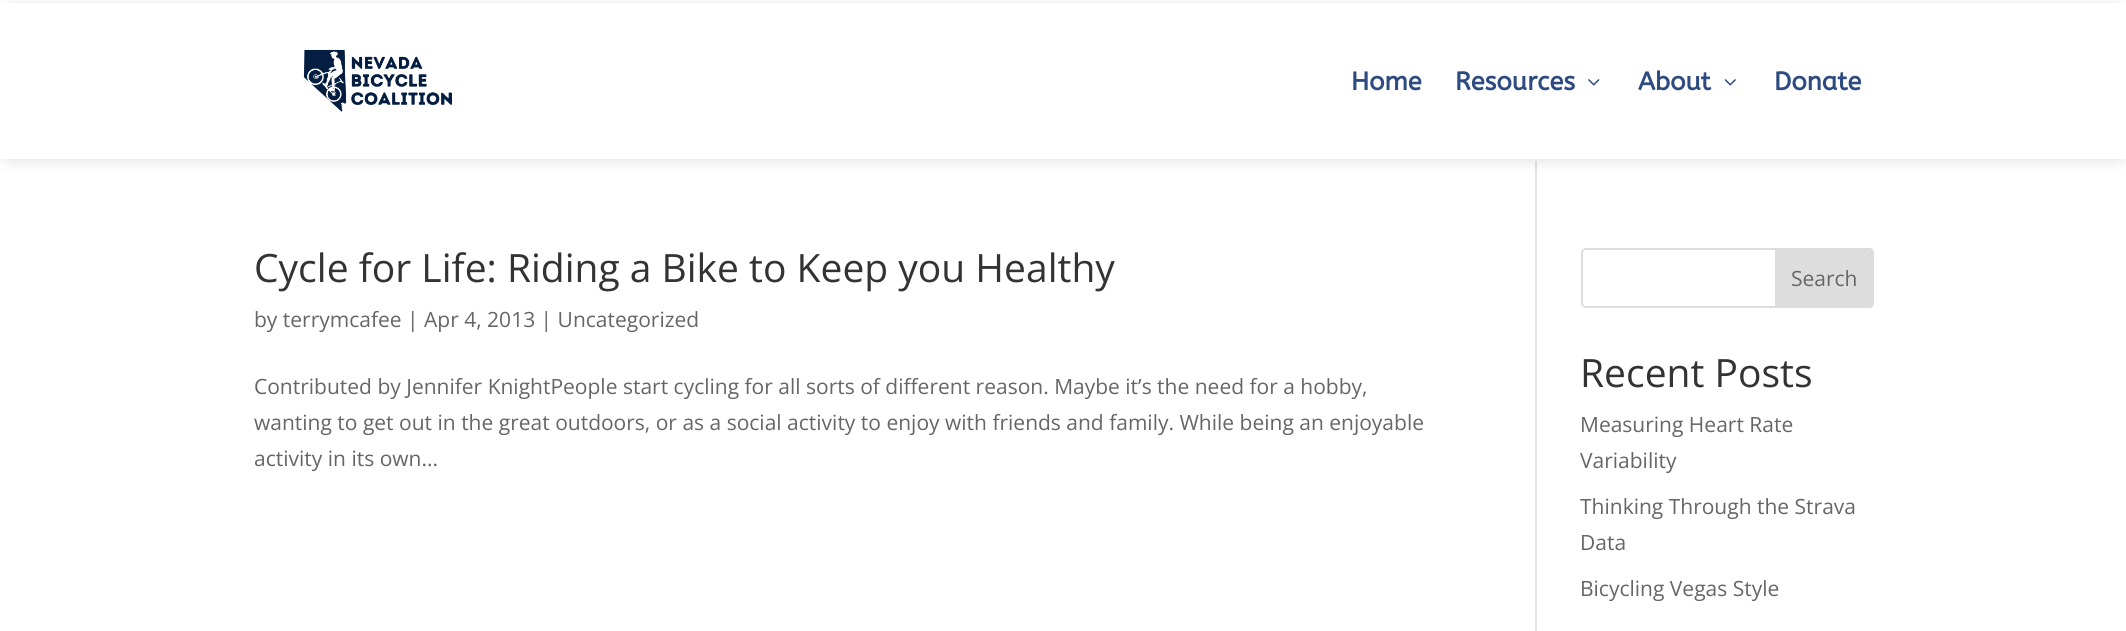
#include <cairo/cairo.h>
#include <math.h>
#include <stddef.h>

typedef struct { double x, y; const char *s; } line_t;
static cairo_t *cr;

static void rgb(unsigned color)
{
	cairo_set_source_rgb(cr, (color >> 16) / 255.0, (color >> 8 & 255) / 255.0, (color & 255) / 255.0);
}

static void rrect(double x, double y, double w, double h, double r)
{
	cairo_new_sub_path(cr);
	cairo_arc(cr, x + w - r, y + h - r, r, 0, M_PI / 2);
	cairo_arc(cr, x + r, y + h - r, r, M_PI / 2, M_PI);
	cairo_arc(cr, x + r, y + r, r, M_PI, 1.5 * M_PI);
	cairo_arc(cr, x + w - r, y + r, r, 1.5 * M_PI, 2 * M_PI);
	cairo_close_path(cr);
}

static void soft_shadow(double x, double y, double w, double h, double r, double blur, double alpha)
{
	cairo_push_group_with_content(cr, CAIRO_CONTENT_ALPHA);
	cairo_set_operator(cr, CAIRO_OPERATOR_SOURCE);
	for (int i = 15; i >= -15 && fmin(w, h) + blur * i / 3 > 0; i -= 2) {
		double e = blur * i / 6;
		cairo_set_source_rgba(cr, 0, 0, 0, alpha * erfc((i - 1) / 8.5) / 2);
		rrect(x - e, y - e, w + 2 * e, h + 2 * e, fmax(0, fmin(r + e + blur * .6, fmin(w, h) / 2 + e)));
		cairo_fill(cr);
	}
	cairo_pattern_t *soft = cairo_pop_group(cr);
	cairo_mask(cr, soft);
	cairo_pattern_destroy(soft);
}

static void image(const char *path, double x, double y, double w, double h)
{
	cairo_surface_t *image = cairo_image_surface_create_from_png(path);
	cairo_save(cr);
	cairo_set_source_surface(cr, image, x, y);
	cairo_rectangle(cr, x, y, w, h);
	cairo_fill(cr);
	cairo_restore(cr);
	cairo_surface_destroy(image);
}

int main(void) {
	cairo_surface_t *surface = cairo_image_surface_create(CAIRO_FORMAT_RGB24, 2126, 631);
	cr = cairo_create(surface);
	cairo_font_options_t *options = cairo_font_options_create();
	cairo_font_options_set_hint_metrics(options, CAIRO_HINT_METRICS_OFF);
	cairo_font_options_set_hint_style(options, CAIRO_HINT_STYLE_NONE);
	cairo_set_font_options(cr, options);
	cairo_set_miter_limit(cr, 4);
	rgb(0xffffff);
	cairo_paint(cr);
	rgb(0xe2e2e2);
	cairo_rectangle(cr, 1535, 161, 2, 470);
	cairo_fill(cr);
	cairo_save(cr);
	cairo_set_fill_rule(cr, CAIRO_FILL_RULE_EVEN_ODD);
	cairo_new_path(cr);
	cairo_move_to(cr, 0, 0);
	cairo_line_to(cr, 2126, 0);
	cairo_line_to(cr, 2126, 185);
	cairo_line_to(cr, 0, 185);
	cairo_close_path(cr);
	cairo_move_to(cr, 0, 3);
	cairo_line_to(cr, 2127, 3);
	cairo_line_to(cr, 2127, 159);
	cairo_line_to(cr, 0, 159);
	cairo_close_path(cr);
	cairo_clip(cr);
	rgb(0x000000);
	soft_shadow(9, 14, 2109, 138, 0, 10.5, 0.3);
	cairo_restore(cr);
	image("img/1.png", 303, 49, 149, 63);
	image("img/2.png", 1588, 79, 12, 7);
	image("img/3.png", 1724, 79, 12, 7);
	rrect(1582, 249, 291, 58, 4);
	rgb(0xdddddd);
	cairo_stroke(cr);
	cairo_new_path(cr);
	cairo_move_to(cr, 1776, 249);
	cairo_line_to(cr, 1869, 249);
	cairo_curve_to(cr, 1871, 249, 1873, 251, 1873, 253);
	cairo_line_to(cr, 1873, 303);
	cairo_curve_to(cr, 1873, 305, 1871, 307, 1869, 307);
	cairo_line_to(cr, 1776, 307);
	cairo_close_path(cr);
	cairo_fill_preserve(cr);
	cairo_stroke(cr);
	cairo_select_font_face(cr, "ABeeZee", CAIRO_FONT_SLANT_NORMAL, CAIRO_FONT_WEIGHT_BOLD);
	cairo_set_font_size(cr, 25.5);
	rgb(0x2d4b80);
	{
		static const line_t items[] = {
			{1351, 90, "Home"},
			{1455, 90, "Resources"},
			{1638, 90, "About"},
			{1774, 90, "Donate"},
		};
		for (size_t i = 0; i < sizeof items / sizeof *items; i++) {
			cairo_move_to(cr, items[i].x, items[i].y);
			cairo_show_text(cr, items[i].s);
		}
	}
	cairo_select_font_face(cr, "Open Sans", CAIRO_FONT_SLANT_NORMAL, CAIRO_FONT_WEIGHT_NORMAL);
	cairo_set_font_size(cr, 39);
	rgb(0x333333);
	cairo_move_to(cr, 254, 282);
	cairo_show_text(cr, "Cycle for Life: Riding a Bike to Keep you Healthy");
	cairo_set_font_size(cr, 21);
	rgb(0x666666);
	{
		static const line_t items[] = {
			{254, 327, "by terrymcafee | Apr 4, 2013 | Uncategorized"},
			{254, 394, "Contributed by Jennifer KnightPeople start cycling for all sorts of different reason. Maybe it’s the need for a hobby,"},
			{254, 430, "wanting to get out in the great outdoors, or as a social activity to enjoy with friends and family. While being an enjoyable"},
			{254, 466, "activity in its own..."},
			{1791, 286, "Search"},
		};
		for (size_t i = 0; i < sizeof items / sizeof *items; i++) {
			cairo_move_to(cr, items[i].x, items[i].y);
			cairo_show_text(cr, items[i].s);
		}
	}
	cairo_set_font_size(cr, 39);
	rgb(0x333333);
	cairo_move_to(cr, 1580, 387);
	cairo_show_text(cr, "Recent Posts");
	cairo_set_font_size(cr, 21);
	rgb(0x666666);
	{
		static const line_t items[] = {
			{1580, 432, "Measuring Heart Rate"},
			{1580, 468, "Variability"},
			{1580, 514, "Thinking Through the Strava"},
			{1580, 550, "Data"},
			{1580, 596, "Bicycling Vegas Style"},
		};
		for (size_t i = 0; i < sizeof items / sizeof *items; i++) {
			cairo_move_to(cr, items[i].x, items[i].y);
			cairo_show_text(cr, items[i].s);
		}
	}
	cairo_surface_write_to_png(surface, "page.png");
	cairo_font_options_destroy(options);
	cairo_destroy(cr);
	cairo_surface_destroy(surface);
	return 0;
}
